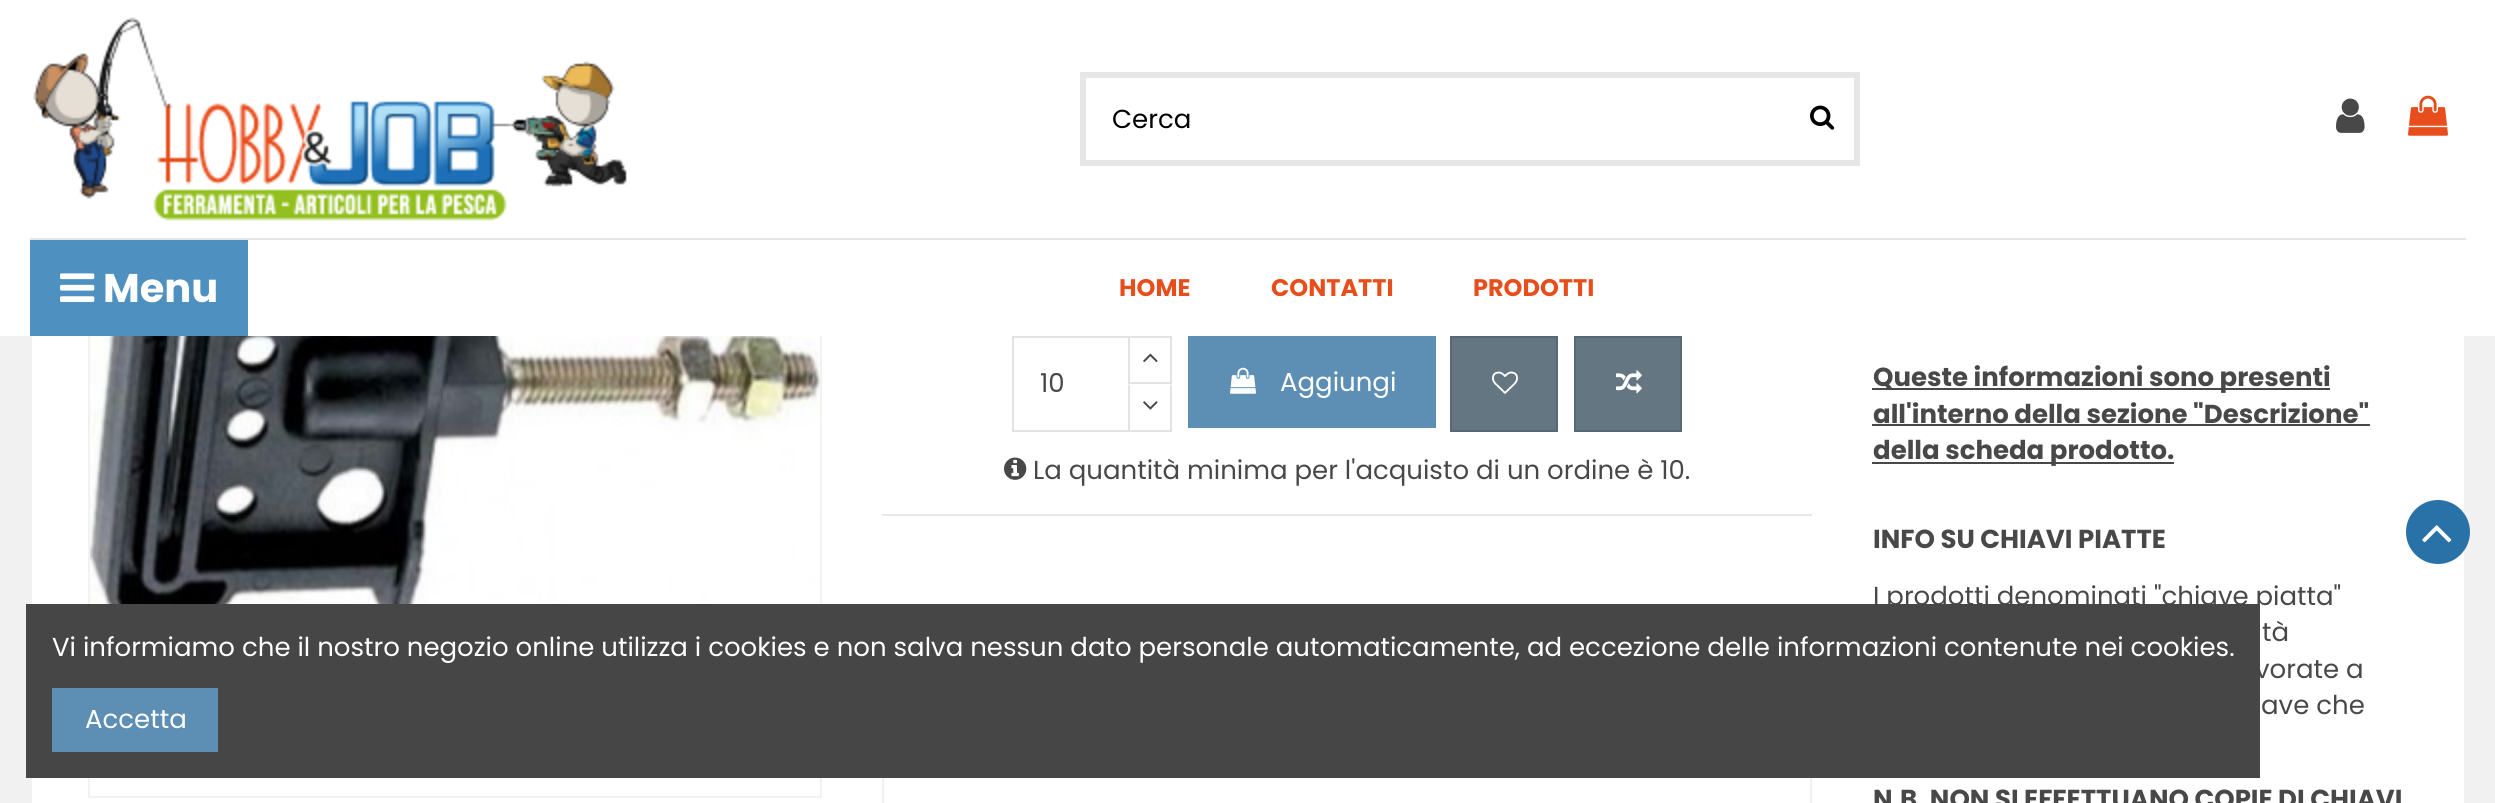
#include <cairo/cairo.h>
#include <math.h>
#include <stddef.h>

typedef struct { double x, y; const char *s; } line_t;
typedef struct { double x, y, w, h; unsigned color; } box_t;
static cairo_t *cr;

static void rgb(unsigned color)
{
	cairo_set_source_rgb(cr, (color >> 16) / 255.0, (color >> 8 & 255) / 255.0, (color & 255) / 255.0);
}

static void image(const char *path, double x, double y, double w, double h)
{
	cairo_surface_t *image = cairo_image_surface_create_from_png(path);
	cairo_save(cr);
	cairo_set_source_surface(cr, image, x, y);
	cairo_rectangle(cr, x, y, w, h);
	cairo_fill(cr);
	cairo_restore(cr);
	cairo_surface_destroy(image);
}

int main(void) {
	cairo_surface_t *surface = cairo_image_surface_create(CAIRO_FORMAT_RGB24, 2495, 803);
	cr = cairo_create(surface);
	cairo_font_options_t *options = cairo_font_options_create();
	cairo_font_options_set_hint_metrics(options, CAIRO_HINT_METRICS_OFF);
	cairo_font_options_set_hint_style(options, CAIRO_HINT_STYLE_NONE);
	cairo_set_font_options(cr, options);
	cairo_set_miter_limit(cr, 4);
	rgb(0xf1f1f1);
	cairo_paint(cr);
	rgb(0xffffff);
	cairo_rectangle(cr, 32, 336, 2432, 467);
	cairo_fill(cr);
	cairo_rectangle(cr, 89, -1, 732, 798);
	rgb(0xf2f2f2);
	cairo_stroke(cr);
	rgb(0xffffff);
	cairo_rectangle(cr, 0, 0, 2495, 336);
	cairo_fill(cr);
	image("img/1.png", 33, 17, 594, 204);
	cairo_rectangle(cr, 1083, 75, 774, 88);
	rgb(0xe6e6e6);
	cairo_set_line_width(cr, 6);
	cairo_stroke(cr);
	image("img/2.png", 1810, 105, 25, 25);
	image("img/3.png", 2336, 98, 29, 35);
	image("img/4.png", 2408, 95, 40, 41);
	cairo_rectangle(cr, 30, 238, 2436, 2);
	cairo_fill(cr);
	rgb(0x4e90bf);
	cairo_rectangle(cr, 30, 240, 218, 96);
	cairo_fill(cr);
	image("img/5.png", 60, 273, 35, 29);
	image("img/6.png", 90, 336, 730, 268);
	cairo_rectangle(cr, 1013, 337, 116, 94);
	rgb(0xe3e3e3);
	cairo_set_line_width(cr, 2);
	cairo_stroke(cr);
	cairo_rectangle(cr, 1129, 337, 42, 46);
	cairo_stroke(cr);
	image("img/7.png", 1143, 353, 15, 9);
	rgb(0xffffff);
	cairo_rectangle(cr, 1128, 384, 2, 46);
	cairo_fill(cr);
	rgb(0xe3e3e3);
	cairo_new_path(cr);
	cairo_move_to(cr, 1172, 384);
	cairo_line_to(cr, 1172, 432);
	cairo_line_to(cr, 1170, 430);
	cairo_line_to(cr, 1170, 386);
	cairo_close_path(cr);
	cairo_fill(cr);
	cairo_rectangle(cr, 1128, 430, 44, 2);
	cairo_fill(cr);
	cairo_new_path(cr);
	cairo_move_to(cr, 1128, 432);
	cairo_line_to(cr, 1128, 384);
	cairo_line_to(cr, 1130, 386);
	cairo_line_to(cr, 1130, 430);
	cairo_close_path(cr);
	cairo_fill(cr);
	image("img/8.png", 1143, 401, 15, 9);
	rgb(0x5d8eb3);
	cairo_rectangle(cr, 1188, 336, 248, 92);
	cairo_fill(cr);
	image("img/9.png", 1230, 367, 26, 27);
	rgb(0x647682);
	cairo_rectangle(cr, 1451, 337, 106, 94);
	cairo_fill_preserve(cr);
	rgb(0x596974);
	cairo_stroke(cr);
	image("img/10.png", 1492, 371, 26, 23);
	rgb(0x647682);
	cairo_rectangle(cr, 1575, 337, 106, 94);
	cairo_fill_preserve(cr);
	rgb(0x596974);
	cairo_stroke(cr);
	image("img/11.png", 1616, 370, 26, 24);
	image("img/12.png", 1004, 457, 23, 23);
	{
		static const box_t items[] = {
			{882, 514, 930, 2, 0xe8e8e8},
			{1810, 778, 2, 25, 0xf0f0f0},
			{882, 778, 2, 25, 0xf0f0f0},
			{1872, 388, 458, 2, 0x484848},
			{1872, 424, 498, 2, 0x484848},
			{1872, 462, 302, 2, 0x484848},
		};
		for (size_t i = 0; i < sizeof items / sizeof *items; i++) {
			rgb(items[i].color);
			cairo_rectangle(cr, items[i].x, items[i].y, items[i].w, items[i].h);
			cairo_fill(cr);
		}
	}
	rgb(0x2972a7);
	cairo_arc(cr, 2438, 532, 32, 0, 2 * M_PI);
	cairo_fill(cr);
	image("img/13.png", 2422, 525, 30, 18);
	cairo_select_font_face(cr, "Poppins", CAIRO_FONT_SLANT_NORMAL, CAIRO_FONT_WEIGHT_NORMAL);
	cairo_set_font_size(cr, 26);
	rgb(0x000000);
	cairo_move_to(cr, 1112, 128);
	cairo_show_text(cr, "Cerca");
	cairo_select_font_face(cr, "Poppins", CAIRO_FONT_SLANT_NORMAL, CAIRO_FONT_WEIGHT_BOLD);
	cairo_set_font_size(cr, 40);
	rgb(0xffffff);
	cairo_move_to(cr, 103, 302);
	cairo_show_text(cr, "Menu");
	cairo_set_font_size(cr, 24);
	rgb(0xe84e1b);
	{
		static const line_t items[] = {
			{1119, 296, "HOME"},
			{1271, 296, "CONTATTI"},
			{1473, 296, "PRODOTTI"},
		};
		for (size_t i = 0; i < sizeof items / sizeof *items; i++) {
			cairo_move_to(cr, items[i].x, items[i].y);
			cairo_show_text(cr, items[i].s);
		}
	}
	cairo_select_font_face(cr, "Poppins", CAIRO_FONT_SLANT_NORMAL, CAIRO_FONT_WEIGHT_NORMAL);
	cairo_set_font_size(cr, 26);
	rgb(0x484848);
	cairo_move_to(cr, 1040, 392);
	cairo_show_text(cr, "10");
	rgb(0xffffff);
	cairo_move_to(cr, 1280, 391);
	cairo_show_text(cr, "Aggiungi");
	rgb(0x484848);
	cairo_move_to(cr, 1033, 479);
	cairo_show_text(cr, "La quantità minima per l'acquisto di un ordine è 10.");
	cairo_select_font_face(cr, "Poppins", CAIRO_FONT_SLANT_NORMAL, CAIRO_FONT_WEIGHT_BOLD);
	{
		static const line_t items[] = {
			{1873, 386, "Queste informazioni sono presenti"},
			{1873, 423, "all'interno della sezione \"Descrizione\""},
			{1873, 459, "della scheda prodotto."},
			{1873, 548, "INFO SU CHIAVI PIATTE"},
		};
		for (size_t i = 0; i < sizeof items / sizeof *items; i++) {
			cairo_move_to(cr, items[i].x, items[i].y);
			cairo_show_text(cr, items[i].s);
		}
	}
	cairo_select_font_face(cr, "Poppins", CAIRO_FONT_SLANT_NORMAL, CAIRO_FONT_WEIGHT_NORMAL);
	{
		static const line_t items[] = {
			{1873, 605, "I prodotti denominati \"chiave piatta\""},
			{2262, 641, "tà"},
			{2255, 678, "vorate a"},
			{2261, 714, "ave che"},
		};
		for (size_t i = 0; i < sizeof items / sizeof *items; i++) {
			cairo_move_to(cr, items[i].x, items[i].y);
			cairo_show_text(cr, items[i].s);
		}
	}
	cairo_select_font_face(cr, "Poppins", CAIRO_FONT_SLANT_NORMAL, CAIRO_FONT_WEIGHT_BOLD);
	cairo_move_to(cr, 1873, 808);
	cairo_show_text(cr, "N.B. NON SI EFFETTUANO COPIE DI CHIAVI");
	rgb(0x464646);
	cairo_rectangle(cr, 26, 604, 2234, 174);
	cairo_fill(cr);
	cairo_select_font_face(cr, "Poppins", CAIRO_FONT_SLANT_NORMAL, CAIRO_FONT_WEIGHT_NORMAL);
	rgb(0xffffff);
	cairo_move_to(cr, 52, 656);
	cairo_show_text(cr, "Vi informiamo che il nostro negozio online utilizza i cookies e non salva nessun dato personale automaticamente, ad eccezione delle informazioni contenute nei cookies.");
	rgb(0x5d8eb3);
	cairo_rectangle(cr, 52, 688, 166, 64);
	cairo_fill(cr);
	rgb(0xffffff);
	cairo_move_to(cr, 85, 728);
	cairo_show_text(cr, "Accetta");
	cairo_surface_write_to_png(surface, "page.png");
	cairo_font_options_destroy(options);
	cairo_destroy(cr);
	cairo_surface_destroy(surface);
	return 0;
}
